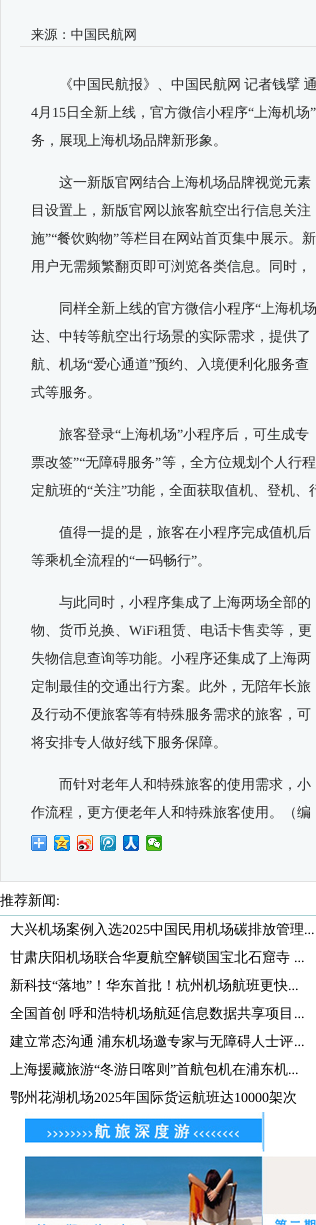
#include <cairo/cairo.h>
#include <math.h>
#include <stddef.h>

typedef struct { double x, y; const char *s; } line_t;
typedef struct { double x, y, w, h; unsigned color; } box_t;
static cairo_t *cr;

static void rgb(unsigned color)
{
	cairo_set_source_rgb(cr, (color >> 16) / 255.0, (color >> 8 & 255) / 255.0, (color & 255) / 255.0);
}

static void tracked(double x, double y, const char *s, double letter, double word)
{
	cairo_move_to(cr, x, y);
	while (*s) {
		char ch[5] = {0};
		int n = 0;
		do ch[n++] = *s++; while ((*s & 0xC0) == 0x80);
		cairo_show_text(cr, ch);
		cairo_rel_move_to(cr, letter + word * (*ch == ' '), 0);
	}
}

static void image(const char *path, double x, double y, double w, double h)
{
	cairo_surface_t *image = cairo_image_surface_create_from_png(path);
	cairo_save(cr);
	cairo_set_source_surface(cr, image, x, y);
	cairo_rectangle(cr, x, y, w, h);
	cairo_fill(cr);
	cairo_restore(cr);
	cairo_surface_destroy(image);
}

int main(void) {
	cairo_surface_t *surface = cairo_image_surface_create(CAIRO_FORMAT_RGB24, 316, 1225);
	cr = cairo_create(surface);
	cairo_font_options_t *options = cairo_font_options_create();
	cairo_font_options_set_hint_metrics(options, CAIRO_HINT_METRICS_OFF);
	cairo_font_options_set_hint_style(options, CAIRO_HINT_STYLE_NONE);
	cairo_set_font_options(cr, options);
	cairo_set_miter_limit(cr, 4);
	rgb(0xffffff);
	cairo_paint(cr);
	{
		static const box_t items[] = {
			{1, 0, 315, 881, 0xf5f8f9},
			{0, 881, 316, 1, 0xe1e1e1},
			{0, 0, 1, 882, 0xe1e1e1},
			{20, 46, 296, 1, 0xe1e1e1},
		};
		for (size_t i = 0; i < sizeof items / sizeof *items; i++) {
			rgb(items[i].color);
			cairo_rectangle(cr, items[i].x, items[i].y, items[i].w, items[i].h);
			cairo_fill(cr);
		}
	}
	image("img/1.png", 31, 835, 16, 16);
	image("img/2.png", 54, 835, 16, 16);
	image("img/3.png", 77, 835, 16, 16);
	image("img/4.png", 100, 835, 16, 16);
	image("img/5.png", 123, 835, 16, 16);
	image("img/6.png", 146, 835, 16, 16);
	rgb(0xa9d1d3);
	cairo_rectangle(cr, 0, 915, 316, 1);
	cairo_fill(cr);
	image("img/7.png", 25, 1112, 291, 113);
	cairo_select_font_face(cr, "WenQuanYi Zen Hei Medium", CAIRO_FONT_SLANT_NORMAL, CAIRO_FONT_WEIGHT_NORMAL);
	cairo_set_font_size(cr, 13.25);
	rgb(0x272727);
	cairo_move_to(cr, 31, 39);
	cairo_show_text(cr, "来源：中国民航网");
	cairo_set_font_size(cr, 14);
	tracked(59, 89, "《中国民航报》、中国民航网 记者钱擘 通", 0, -1);
	cairo_select_font_face(cr, "Liberation Serif", CAIRO_FONT_SLANT_NORMAL, CAIRO_FONT_WEIGHT_NORMAL);
	cairo_move_to(cr, 31, 117);
	cairo_show_text(cr, "4");
	cairo_select_font_face(cr, "WenQuanYi Zen Hei Medium", CAIRO_FONT_SLANT_NORMAL, CAIRO_FONT_WEIGHT_NORMAL);
	cairo_move_to(cr, 38, 117);
	cairo_show_text(cr, "月");
	cairo_select_font_face(cr, "Liberation Serif", CAIRO_FONT_SLANT_NORMAL, CAIRO_FONT_WEIGHT_NORMAL);
	cairo_move_to(cr, 52, 117);
	cairo_show_text(cr, "15");
	cairo_select_font_face(cr, "WenQuanYi Zen Hei Medium", CAIRO_FONT_SLANT_NORMAL, CAIRO_FONT_WEIGHT_NORMAL);
	cairo_move_to(cr, 66, 117);
	cairo_show_text(cr, "日全新上线，官方微信小程序");
	cairo_select_font_face(cr, "Liberation Serif", CAIRO_FONT_SLANT_NORMAL, CAIRO_FONT_WEIGHT_NORMAL);
	cairo_move_to(cr, 248, 117);
	cairo_show_text(cr, "“");
	cairo_select_font_face(cr, "WenQuanYi Zen Hei Medium", CAIRO_FONT_SLANT_NORMAL, CAIRO_FONT_WEIGHT_NORMAL);
	cairo_move_to(cr, 254, 117);
	cairo_show_text(cr, "上海机场");
	cairo_select_font_face(cr, "Liberation Serif", CAIRO_FONT_SLANT_NORMAL, CAIRO_FONT_WEIGHT_NORMAL);
	cairo_move_to(cr, 310, 117);
	cairo_show_text(cr, "”");
	cairo_select_font_face(cr, "WenQuanYi Zen Hei Medium", CAIRO_FONT_SLANT_NORMAL, CAIRO_FONT_WEIGHT_NORMAL);
	{
		static const line_t items[] = {
			{31, 145, "务，展现上海机场品牌新形象。"},
			{59, 187, "这一新版官网结合上海机场品牌视觉元素"},
			{31, 215, "目设置上，新版官网以旅客航空出行信息关注"},
			{31, 243, "施"},
		};
		for (size_t i = 0; i < sizeof items / sizeof *items; i++) {
			cairo_move_to(cr, items[i].x, items[i].y);
			cairo_show_text(cr, items[i].s);
		}
	}
	cairo_select_font_face(cr, "Liberation Serif", CAIRO_FONT_SLANT_NORMAL, CAIRO_FONT_WEIGHT_NORMAL);
	cairo_move_to(cr, 45, 243);
	cairo_show_text(cr, "”“");
	cairo_select_font_face(cr, "WenQuanYi Zen Hei Medium", CAIRO_FONT_SLANT_NORMAL, CAIRO_FONT_WEIGHT_NORMAL);
	cairo_move_to(cr, 57, 243);
	cairo_show_text(cr, "餐饮购物");
	cairo_select_font_face(cr, "Liberation Serif", CAIRO_FONT_SLANT_NORMAL, CAIRO_FONT_WEIGHT_NORMAL);
	cairo_move_to(cr, 113, 243);
	cairo_show_text(cr, "”");
	cairo_select_font_face(cr, "WenQuanYi Zen Hei Medium", CAIRO_FONT_SLANT_NORMAL, CAIRO_FONT_WEIGHT_NORMAL);
	{
		static const line_t items[] = {
			{120, 243, "等栏目在网站首页集中展示。新"},
			{31, 271, "用户无需频繁翻页即可浏览各类信息。同时，"},
			{59, 313, "同样全新上线的官方微信小程序"},
		};
		for (size_t i = 0; i < sizeof items / sizeof *items; i++) {
			cairo_move_to(cr, items[i].x, items[i].y);
			cairo_show_text(cr, items[i].s);
		}
	}
	cairo_select_font_face(cr, "Liberation Serif", CAIRO_FONT_SLANT_NORMAL, CAIRO_FONT_WEIGHT_NORMAL);
	cairo_move_to(cr, 255, 313);
	cairo_show_text(cr, "“");
	cairo_select_font_face(cr, "WenQuanYi Zen Hei Medium", CAIRO_FONT_SLANT_NORMAL, CAIRO_FONT_WEIGHT_NORMAL);
	{
		static const line_t items[] = {
			{261, 313, "上海机场"},
			{31, 341, "达、中转等航空出行场景的实际需求，提供了"},
			{31, 369, "航、机场"},
		};
		for (size_t i = 0; i < sizeof items / sizeof *items; i++) {
			cairo_move_to(cr, items[i].x, items[i].y);
			cairo_show_text(cr, items[i].s);
		}
	}
	cairo_select_font_face(cr, "Liberation Serif", CAIRO_FONT_SLANT_NORMAL, CAIRO_FONT_WEIGHT_NORMAL);
	cairo_move_to(cr, 87, 369);
	cairo_show_text(cr, "“");
	cairo_select_font_face(cr, "WenQuanYi Zen Hei Medium", CAIRO_FONT_SLANT_NORMAL, CAIRO_FONT_WEIGHT_NORMAL);
	cairo_move_to(cr, 93, 369);
	cairo_show_text(cr, "爱心通道");
	cairo_select_font_face(cr, "Liberation Serif", CAIRO_FONT_SLANT_NORMAL, CAIRO_FONT_WEIGHT_NORMAL);
	cairo_move_to(cr, 149, 369);
	cairo_show_text(cr, "”");
	cairo_select_font_face(cr, "WenQuanYi Zen Hei Medium", CAIRO_FONT_SLANT_NORMAL, CAIRO_FONT_WEIGHT_NORMAL);
	{
		static const line_t items[] = {
			{155, 369, "预约、入境便利化服务查"},
			{31, 397, "式等服务。"},
			{59, 439, "旅客登录"},
		};
		for (size_t i = 0; i < sizeof items / sizeof *items; i++) {
			cairo_move_to(cr, items[i].x, items[i].y);
			cairo_show_text(cr, items[i].s);
		}
	}
	cairo_select_font_face(cr, "Liberation Serif", CAIRO_FONT_SLANT_NORMAL, CAIRO_FONT_WEIGHT_NORMAL);
	cairo_move_to(cr, 115, 439);
	cairo_show_text(cr, "“");
	cairo_select_font_face(cr, "WenQuanYi Zen Hei Medium", CAIRO_FONT_SLANT_NORMAL, CAIRO_FONT_WEIGHT_NORMAL);
	cairo_move_to(cr, 121, 439);
	cairo_show_text(cr, "上海机场");
	cairo_select_font_face(cr, "Liberation Serif", CAIRO_FONT_SLANT_NORMAL, CAIRO_FONT_WEIGHT_NORMAL);
	cairo_move_to(cr, 177, 439);
	cairo_show_text(cr, "”");
	cairo_select_font_face(cr, "WenQuanYi Zen Hei Medium", CAIRO_FONT_SLANT_NORMAL, CAIRO_FONT_WEIGHT_NORMAL);
	cairo_move_to(cr, 183, 439);
	cairo_show_text(cr, "小程序后，可生成专");
	cairo_move_to(cr, 31, 467);
	cairo_show_text(cr, "票改签");
	cairo_select_font_face(cr, "Liberation Serif", CAIRO_FONT_SLANT_NORMAL, CAIRO_FONT_WEIGHT_NORMAL);
	cairo_move_to(cr, 73, 467);
	cairo_show_text(cr, "”“");
	cairo_select_font_face(cr, "WenQuanYi Zen Hei Medium", CAIRO_FONT_SLANT_NORMAL, CAIRO_FONT_WEIGHT_NORMAL);
	cairo_move_to(cr, 85, 467);
	cairo_show_text(cr, "无障碍服务");
	cairo_select_font_face(cr, "Liberation Serif", CAIRO_FONT_SLANT_NORMAL, CAIRO_FONT_WEIGHT_NORMAL);
	cairo_move_to(cr, 155, 467);
	cairo_show_text(cr, "”");
	cairo_select_font_face(cr, "WenQuanYi Zen Hei Medium", CAIRO_FONT_SLANT_NORMAL, CAIRO_FONT_WEIGHT_NORMAL);
	cairo_move_to(cr, 162, 467);
	cairo_show_text(cr, "等，全方位规划个人行程");
	cairo_move_to(cr, 31, 495);
	cairo_show_text(cr, "定航班的");
	cairo_select_font_face(cr, "Liberation Serif", CAIRO_FONT_SLANT_NORMAL, CAIRO_FONT_WEIGHT_NORMAL);
	cairo_move_to(cr, 87, 495);
	cairo_show_text(cr, "“");
	cairo_select_font_face(cr, "WenQuanYi Zen Hei Medium", CAIRO_FONT_SLANT_NORMAL, CAIRO_FONT_WEIGHT_NORMAL);
	cairo_move_to(cr, 93, 495);
	cairo_show_text(cr, "关注");
	cairo_select_font_face(cr, "Liberation Serif", CAIRO_FONT_SLANT_NORMAL, CAIRO_FONT_WEIGHT_NORMAL);
	cairo_move_to(cr, 121, 495);
	cairo_show_text(cr, "”");
	cairo_select_font_face(cr, "WenQuanYi Zen Hei Medium", CAIRO_FONT_SLANT_NORMAL, CAIRO_FONT_WEIGHT_NORMAL);
	{
		static const line_t items[] = {
			{127, 495, "功能，全面获取值机、登机、行"},
			{59, 537, "值得一提的是，旅客在小程序完成值机后"},
			{31, 565, "等乘机全流程的"},
		};
		for (size_t i = 0; i < sizeof items / sizeof *items; i++) {
			cairo_move_to(cr, items[i].x, items[i].y);
			cairo_show_text(cr, items[i].s);
		}
	}
	cairo_select_font_face(cr, "Liberation Serif", CAIRO_FONT_SLANT_NORMAL, CAIRO_FONT_WEIGHT_NORMAL);
	cairo_move_to(cr, 129, 565);
	cairo_show_text(cr, "“");
	cairo_select_font_face(cr, "WenQuanYi Zen Hei Medium", CAIRO_FONT_SLANT_NORMAL, CAIRO_FONT_WEIGHT_NORMAL);
	cairo_move_to(cr, 135, 565);
	cairo_show_text(cr, "一码畅行");
	cairo_select_font_face(cr, "Liberation Serif", CAIRO_FONT_SLANT_NORMAL, CAIRO_FONT_WEIGHT_NORMAL);
	cairo_move_to(cr, 191, 565);
	cairo_show_text(cr, "”");
	cairo_select_font_face(cr, "WenQuanYi Zen Hei Medium", CAIRO_FONT_SLANT_NORMAL, CAIRO_FONT_WEIGHT_NORMAL);
	{
		static const line_t items[] = {
			{197, 565, "。"},
			{59, 607, "与此同时，小程序集成了上海两场全部的"},
			{31, 635, "物、货币兑换、"},
		};
		for (size_t i = 0; i < sizeof items / sizeof *items; i++) {
			cairo_move_to(cr, items[i].x, items[i].y);
			cairo_show_text(cr, items[i].s);
		}
	}
	cairo_select_font_face(cr, "Liberation Serif", CAIRO_FONT_SLANT_NORMAL, CAIRO_FONT_WEIGHT_NORMAL);
	cairo_move_to(cr, 129, 635);
	cairo_show_text(cr, "WiFi");
	cairo_select_font_face(cr, "WenQuanYi Zen Hei Medium", CAIRO_FONT_SLANT_NORMAL, CAIRO_FONT_WEIGHT_NORMAL);
	{
		static const line_t items[] = {
			{158, 635, "租赁、电话卡售卖等，更"},
			{31, 663, "失物信息查询等功能。小程序还集成了上海两"},
			{31, 691, "定制最佳的交通出行方案。此外，无陪年长旅"},
			{31, 719, "及行动不便旅客等有特殊服务需求的旅客，可"},
			{31, 747, "将安排专人做好线下服务保障。"},
			{59, 789, "而针对老年人和特殊旅客的使用需求，小"},
			{31, 817, "作流程，更方便老年人和特殊旅客使用。（编"},
		};
		for (size_t i = 0; i < sizeof items / sizeof *items; i++) {
			cairo_move_to(cr, items[i].x, items[i].y);
			cairo_show_text(cr, items[i].s);
		}
	}
	rgb(0x000000);
	cairo_move_to(cr, 0, 905);
	cairo_show_text(cr, "推荐新闻");
	cairo_select_font_face(cr, "Liberation Serif", CAIRO_FONT_SLANT_NORMAL, CAIRO_FONT_WEIGHT_NORMAL);
	cairo_move_to(cr, 56, 905);
	cairo_show_text(cr, ":");
	cairo_select_font_face(cr, "WenQuanYi Zen Hei Medium", CAIRO_FONT_SLANT_NORMAL, CAIRO_FONT_WEIGHT_NORMAL);
	cairo_move_to(cr, 10, 934);
	cairo_show_text(cr, "大兴机场案例入选");
	cairo_select_font_face(cr, "Liberation Serif", CAIRO_FONT_SLANT_NORMAL, CAIRO_FONT_WEIGHT_NORMAL);
	cairo_move_to(cr, 122, 934);
	cairo_show_text(cr, "2025");
	cairo_select_font_face(cr, "WenQuanYi Zen Hei Medium", CAIRO_FONT_SLANT_NORMAL, CAIRO_FONT_WEIGHT_NORMAL);
	cairo_move_to(cr, 150, 934);
	cairo_show_text(cr, "中国民用机场碳排放管理");
	cairo_select_font_face(cr, "Liberation Serif", CAIRO_FONT_SLANT_NORMAL, CAIRO_FONT_WEIGHT_NORMAL);
	cairo_move_to(cr, 304, 934);
	cairo_show_text(cr, "...");
	cairo_select_font_face(cr, "WenQuanYi Zen Hei Medium", CAIRO_FONT_SLANT_NORMAL, CAIRO_FONT_WEIGHT_NORMAL);
	cairo_move_to(cr, 10, 962);
	cairo_show_text(cr, "甘肃庆阳机场联合华夏航空解锁国宝北石窟寺");
	cairo_select_font_face(cr, "Liberation Serif", CAIRO_FONT_SLANT_NORMAL, CAIRO_FONT_WEIGHT_NORMAL);
	cairo_move_to(cr, 294, 962);
	cairo_show_text(cr, "...");
	cairo_select_font_face(cr, "WenQuanYi Zen Hei Medium", CAIRO_FONT_SLANT_NORMAL, CAIRO_FONT_WEIGHT_NORMAL);
	cairo_move_to(cr, 10, 990);
	cairo_show_text(cr, "新科技");
	cairo_select_font_face(cr, "Liberation Serif", CAIRO_FONT_SLANT_NORMAL, CAIRO_FONT_WEIGHT_NORMAL);
	cairo_move_to(cr, 52, 990);
	cairo_show_text(cr, "“");
	cairo_select_font_face(cr, "WenQuanYi Zen Hei Medium", CAIRO_FONT_SLANT_NORMAL, CAIRO_FONT_WEIGHT_NORMAL);
	cairo_move_to(cr, 58, 990);
	cairo_show_text(cr, "落地");
	cairo_select_font_face(cr, "Liberation Serif", CAIRO_FONT_SLANT_NORMAL, CAIRO_FONT_WEIGHT_NORMAL);
	cairo_move_to(cr, 86, 990);
	cairo_show_text(cr, "”");
	cairo_select_font_face(cr, "WenQuanYi Zen Hei Medium", CAIRO_FONT_SLANT_NORMAL, CAIRO_FONT_WEIGHT_NORMAL);
	cairo_move_to(cr, 92, 990);
	cairo_show_text(cr, "！华东首批！杭州机场航班更快");
	cairo_select_font_face(cr, "Liberation Serif", CAIRO_FONT_SLANT_NORMAL, CAIRO_FONT_WEIGHT_NORMAL);
	cairo_move_to(cr, 288, 990);
	cairo_show_text(cr, "...");
	cairo_select_font_face(cr, "WenQuanYi Zen Hei Medium", CAIRO_FONT_SLANT_NORMAL, CAIRO_FONT_WEIGHT_NORMAL);
	tracked(10, 1018, "全国首创 呼和浩特机场航延信息数据共享项目", 0, -1);
	cairo_select_font_face(cr, "Liberation Serif", CAIRO_FONT_SLANT_NORMAL, CAIRO_FONT_WEIGHT_NORMAL);
	cairo_move_to(cr, 294, 1018);
	cairo_show_text(cr, "...");
	cairo_select_font_face(cr, "WenQuanYi Zen Hei Medium", CAIRO_FONT_SLANT_NORMAL, CAIRO_FONT_WEIGHT_NORMAL);
	tracked(10, 1046, "建立常态沟通 浦东机场邀专家与无障碍人士评", 0, -1);
	cairo_select_font_face(cr, "Liberation Serif", CAIRO_FONT_SLANT_NORMAL, CAIRO_FONT_WEIGHT_NORMAL);
	cairo_move_to(cr, 294, 1046);
	cairo_show_text(cr, "...");
	cairo_select_font_face(cr, "WenQuanYi Zen Hei Medium", CAIRO_FONT_SLANT_NORMAL, CAIRO_FONT_WEIGHT_NORMAL);
	cairo_move_to(cr, 10, 1074);
	cairo_show_text(cr, "上海援藏旅游");
	cairo_select_font_face(cr, "Liberation Serif", CAIRO_FONT_SLANT_NORMAL, CAIRO_FONT_WEIGHT_NORMAL);
	cairo_move_to(cr, 94, 1074);
	cairo_show_text(cr, "“");
	cairo_select_font_face(cr, "WenQuanYi Zen Hei Medium", CAIRO_FONT_SLANT_NORMAL, CAIRO_FONT_WEIGHT_NORMAL);
	cairo_move_to(cr, 100, 1074);
	cairo_show_text(cr, "冬游日喀则");
	cairo_select_font_face(cr, "Liberation Serif", CAIRO_FONT_SLANT_NORMAL, CAIRO_FONT_WEIGHT_NORMAL);
	cairo_move_to(cr, 170, 1074);
	cairo_show_text(cr, "”");
	cairo_select_font_face(cr, "WenQuanYi Zen Hei Medium", CAIRO_FONT_SLANT_NORMAL, CAIRO_FONT_WEIGHT_NORMAL);
	cairo_move_to(cr, 176, 1074);
	cairo_show_text(cr, "首航包机在浦东机");
	cairo_select_font_face(cr, "Liberation Serif", CAIRO_FONT_SLANT_NORMAL, CAIRO_FONT_WEIGHT_NORMAL);
	cairo_move_to(cr, 288, 1074);
	cairo_show_text(cr, "...");
	cairo_select_font_face(cr, "WenQuanYi Zen Hei Medium", CAIRO_FONT_SLANT_NORMAL, CAIRO_FONT_WEIGHT_NORMAL);
	cairo_move_to(cr, 10, 1102);
	cairo_show_text(cr, "鄂州花湖机场");
	cairo_select_font_face(cr, "Liberation Serif", CAIRO_FONT_SLANT_NORMAL, CAIRO_FONT_WEIGHT_NORMAL);
	cairo_move_to(cr, 94, 1102);
	cairo_show_text(cr, "2025");
	cairo_select_font_face(cr, "WenQuanYi Zen Hei Medium", CAIRO_FONT_SLANT_NORMAL, CAIRO_FONT_WEIGHT_NORMAL);
	cairo_move_to(cr, 122, 1102);
	cairo_show_text(cr, "年国际货运航班达");
	cairo_select_font_face(cr, "Liberation Serif", CAIRO_FONT_SLANT_NORMAL, CAIRO_FONT_WEIGHT_NORMAL);
	cairo_move_to(cr, 234, 1102);
	cairo_show_text(cr, "10000");
	cairo_select_font_face(cr, "WenQuanYi Zen Hei Medium", CAIRO_FONT_SLANT_NORMAL, CAIRO_FONT_WEIGHT_NORMAL);
	cairo_move_to(cr, 269, 1102);
	cairo_show_text(cr, "架次");
	cairo_surface_write_to_png(surface, "page.png");
	cairo_font_options_destroy(options);
	cairo_destroy(cr);
	cairo_surface_destroy(surface);
	return 0;
}
